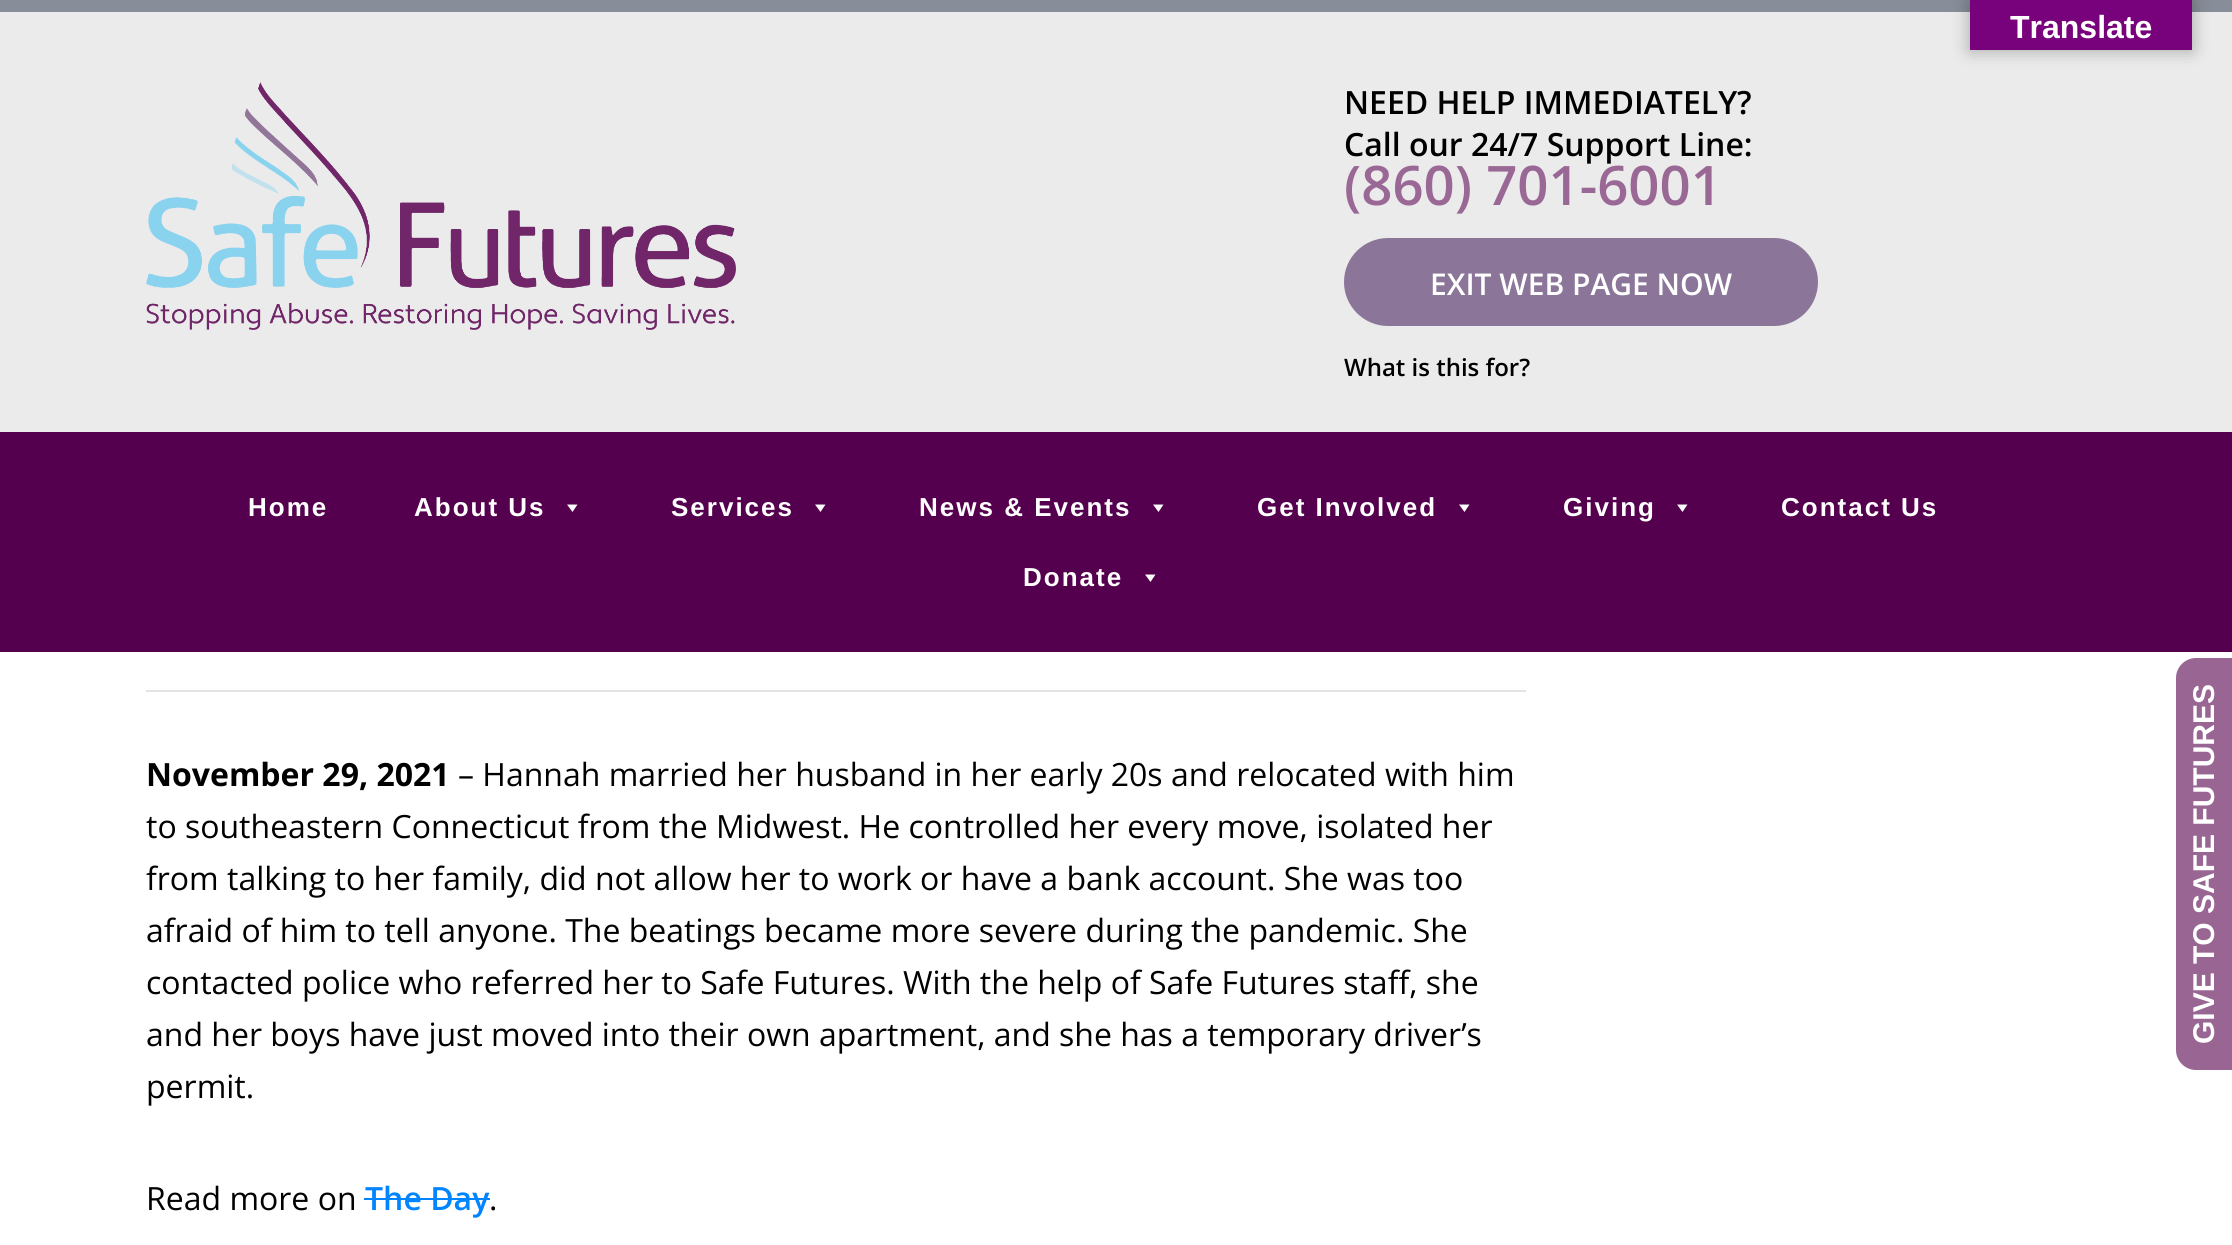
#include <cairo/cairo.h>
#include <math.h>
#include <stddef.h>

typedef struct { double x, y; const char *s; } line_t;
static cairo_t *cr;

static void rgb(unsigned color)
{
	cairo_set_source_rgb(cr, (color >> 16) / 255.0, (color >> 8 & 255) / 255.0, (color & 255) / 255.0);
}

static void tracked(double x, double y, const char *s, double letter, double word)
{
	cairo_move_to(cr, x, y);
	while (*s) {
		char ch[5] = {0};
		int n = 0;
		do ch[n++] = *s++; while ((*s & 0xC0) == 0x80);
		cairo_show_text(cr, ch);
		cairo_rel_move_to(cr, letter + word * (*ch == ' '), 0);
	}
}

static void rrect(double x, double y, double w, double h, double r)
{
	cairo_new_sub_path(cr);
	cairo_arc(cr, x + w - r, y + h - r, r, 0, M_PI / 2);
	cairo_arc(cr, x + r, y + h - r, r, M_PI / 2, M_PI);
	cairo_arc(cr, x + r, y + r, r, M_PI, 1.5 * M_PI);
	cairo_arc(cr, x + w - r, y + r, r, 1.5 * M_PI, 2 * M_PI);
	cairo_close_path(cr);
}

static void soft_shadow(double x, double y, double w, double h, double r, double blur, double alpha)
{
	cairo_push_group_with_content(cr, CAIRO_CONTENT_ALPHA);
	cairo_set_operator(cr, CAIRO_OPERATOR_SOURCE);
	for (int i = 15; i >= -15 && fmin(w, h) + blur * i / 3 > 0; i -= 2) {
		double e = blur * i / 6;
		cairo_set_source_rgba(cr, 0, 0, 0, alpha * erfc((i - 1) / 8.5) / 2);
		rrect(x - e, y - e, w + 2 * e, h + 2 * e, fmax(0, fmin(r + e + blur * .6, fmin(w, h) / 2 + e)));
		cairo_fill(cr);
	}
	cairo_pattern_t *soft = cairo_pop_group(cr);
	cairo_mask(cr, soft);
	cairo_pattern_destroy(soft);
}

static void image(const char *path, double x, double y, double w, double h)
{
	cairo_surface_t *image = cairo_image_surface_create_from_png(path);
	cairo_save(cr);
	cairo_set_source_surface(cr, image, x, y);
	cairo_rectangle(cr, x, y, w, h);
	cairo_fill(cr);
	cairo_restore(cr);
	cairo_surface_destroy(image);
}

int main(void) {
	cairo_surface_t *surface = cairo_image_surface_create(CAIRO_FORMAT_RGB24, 2232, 1245);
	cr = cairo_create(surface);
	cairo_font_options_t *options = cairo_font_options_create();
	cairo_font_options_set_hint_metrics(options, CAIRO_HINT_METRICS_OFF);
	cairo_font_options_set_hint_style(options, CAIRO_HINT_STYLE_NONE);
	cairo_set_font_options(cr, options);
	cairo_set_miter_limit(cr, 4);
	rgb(0xffffff);
	cairo_paint(cr);
	rgb(0x888e99);
	cairo_rectangle(cr, 0, 0, 2232, 12);
	cairo_fill(cr);
	rgb(0xebebeb);
	cairo_rectangle(cr, 0, 12, 2232, 420);
	cairo_fill(cr);
	rgb(0x000000);
	soft_shadow(1970, 0, 222, 50, 0, 9, 0.3);
	rgb(0x78017c);
	cairo_rectangle(cr, 1970, 0, 222, 50);
	cairo_fill(cr);
	rgb(0x54004e);
	cairo_rectangle(cr, 0, 432, 2232, 220);
	cairo_fill(cr);
	rgb(0x8b7699);
	rrect(1344, 238, 474, 88, 44);
	cairo_fill(cr);
	image("img/1.png", 146, 82, 590, 248);
	rgb(0xffffff);
	cairo_new_path(cr);
	cairo_move_to(cr, 577.5, 504.5);
	cairo_line_to(cr, 572.5, 512);
	cairo_line_to(cr, 567, 504.5);
	cairo_close_path(cr);
	cairo_fill(cr);
	cairo_new_path(cr);
	cairo_move_to(cr, 825.5, 504.5);
	cairo_line_to(cr, 820.5, 512);
	cairo_line_to(cr, 815, 504.5);
	cairo_close_path(cr);
	cairo_fill(cr);
	cairo_new_path(cr);
	cairo_move_to(cr, 1163.5, 504.5);
	cairo_line_to(cr, 1158.5, 512);
	cairo_line_to(cr, 1153, 504.5);
	cairo_close_path(cr);
	cairo_fill(cr);
	cairo_new_path(cr);
	cairo_move_to(cr, 1469.5, 504.5);
	cairo_line_to(cr, 1464.5, 512);
	cairo_line_to(cr, 1459, 504.5);
	cairo_close_path(cr);
	cairo_fill(cr);
	cairo_new_path(cr);
	cairo_move_to(cr, 1687.5, 504.5);
	cairo_line_to(cr, 1682.5, 512);
	cairo_line_to(cr, 1677, 504.5);
	cairo_close_path(cr);
	cairo_fill(cr);
	cairo_new_path(cr);
	cairo_move_to(cr, 1155.5, 574.5);
	cairo_line_to(cr, 1150.5, 582);
	cairo_line_to(cr, 1145, 574.5);
	cairo_close_path(cr);
	cairo_fill(cr);
	rgb(0xe4e4e4);
	cairo_rectangle(cr, 146, 690, 1380, 2);
	cairo_fill(cr);
	rgb(0x0084ff);
	cairo_rectangle(cr, 364, 1198, 126, 2);
	cairo_fill(cr);
	rgb(0x996694);
	cairo_new_path(cr);
	cairo_move_to(cr, 2176, 1050);
	cairo_line_to(cr, 2176, 678);
	cairo_curve_to(cr, 2176, 667, 2185, 658, 2196, 658);
	cairo_line_to(cr, 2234, 658);
	cairo_line_to(cr, 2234, 1070);
	cairo_line_to(cr, 2196, 1070);
	cairo_curve_to(cr, 2185, 1070, 2176, 1061, 2176, 1050);
	cairo_close_path(cr);
	cairo_fill(cr);
	cairo_select_font_face(cr, "Liberation Sans", CAIRO_FONT_SLANT_NORMAL, CAIRO_FONT_WEIGHT_BOLD);
	cairo_set_font_size(cr, 32);
	rgb(0xffffff);
	cairo_move_to(cr, 2010, 38);
	cairo_show_text(cr, "Translate");
	cairo_select_font_face(cr, "Open Sans SemiBold", CAIRO_FONT_SLANT_NORMAL, CAIRO_FONT_WEIGHT_NORMAL);
	rgb(0x000000);
	cairo_move_to(cr, 1344, 114);
	cairo_show_text(cr, "NEED HELP IMMEDIATELY?");
	cairo_move_to(cr, 1344, 156);
	cairo_show_text(cr, "Call our 24/7 Support Line:");
	cairo_set_font_size(cr, 54.5);
	rgb(0x9a6895);
	cairo_move_to(cr, 1344, 205);
	cairo_show_text(cr, "(860) 701-6001");
	cairo_set_font_size(cr, 30);
	rgb(0xffffff);
	cairo_move_to(cr, 1430, 295);
	cairo_show_text(cr, "EXIT WEB PAGE NOW");
	cairo_set_font_size(cr, 24);
	rgb(0x000000);
	cairo_move_to(cr, 1344, 376);
	cairo_show_text(cr, "What is this for?");
	cairo_select_font_face(cr, "Liberation Sans", CAIRO_FONT_SLANT_NORMAL, CAIRO_FONT_WEIGHT_BOLD);
	cairo_set_font_size(cr, 26);
	rgb(0xffffff);
	{
		static const line_t items[] = {
			{248, 516, "Home"},
			{414, 516, "About Us"},
			{671, 516, "Services"},
			{919, 516, "News & Events"},
			{1257, 516, "Get Involved"},
			{1563, 516, "Giving"},
			{1781, 516, "Contact Us"},
			{1023, 586, "Donate"},
		};
		for (size_t i = 0; i < sizeof items / sizeof *items; i++) {
			tracked(items[i].x, items[i].y, items[i].s, 2, 0);
		}
	}
	cairo_select_font_face(cr, "Open Sans", CAIRO_FONT_SLANT_NORMAL, CAIRO_FONT_WEIGHT_BOLD);
	cairo_set_font_size(cr, 32);
	rgb(0x000000);
	cairo_move_to(cr, 146, 786);
	cairo_show_text(cr, "November 29, 2021");
	cairo_select_font_face(cr, "Open Sans", CAIRO_FONT_SLANT_NORMAL, CAIRO_FONT_WEIGHT_NORMAL);
	{
		static const line_t items[] = {
			{458, 786, "– Hannah married her husband in her early 20s and relocated with him"},
			{146, 838, "to southeastern Connecticut from the Midwest. He controlled her every move, isolated her"},
			{146, 890, "from talking to her family, did not allow her to work or have a bank account. She was too"},
			{146, 942, "afraid of him to tell anyone. The beatings became more severe during the pandemic. She"},
			{146, 994, "contacted police who referred her to Safe Futures. With the help of Safe Futures staff, she"},
			{146, 1046, "and her boys have just moved into their own apartment, and she has a temporary driver’s"},
			{146, 1098, "permit."},
			{146, 1210, "Read more on"},
		};
		for (size_t i = 0; i < sizeof items / sizeof *items; i++) {
			cairo_move_to(cr, items[i].x, items[i].y);
			cairo_show_text(cr, items[i].s);
		}
	}
	cairo_select_font_face(cr, "Open Sans SemiBold", CAIRO_FONT_SLANT_NORMAL, CAIRO_FONT_WEIGHT_NORMAL);
	rgb(0x0084ff);
	cairo_move_to(cr, 365, 1210);
	cairo_show_text(cr, "The Day");
	cairo_select_font_face(cr, "Open Sans", CAIRO_FONT_SLANT_NORMAL, CAIRO_FONT_WEIGHT_NORMAL);
	rgb(0x000000);
	cairo_move_to(cr, 489, 1210);
	cairo_show_text(cr, ".");
	cairo_select_font_face(cr, "Liberation Sans", CAIRO_FONT_SLANT_NORMAL, CAIRO_FONT_WEIGHT_BOLD);
	cairo_set_font_size(cr, 30);
	rgb(0xffffff);
	cairo_save(cr);
	cairo_translate(cr, 2214, 1044);
	cairo_rotate(cr, -90 * M_PI / 180);
	cairo_move_to(cr, 0, 0);
	cairo_show_text(cr, "GIVE TO SAFE FUTURES");
	cairo_restore(cr);
	cairo_surface_write_to_png(surface, "page.png");
	cairo_font_options_destroy(options);
	cairo_destroy(cr);
	cairo_surface_destroy(surface);
	return 0;
}
